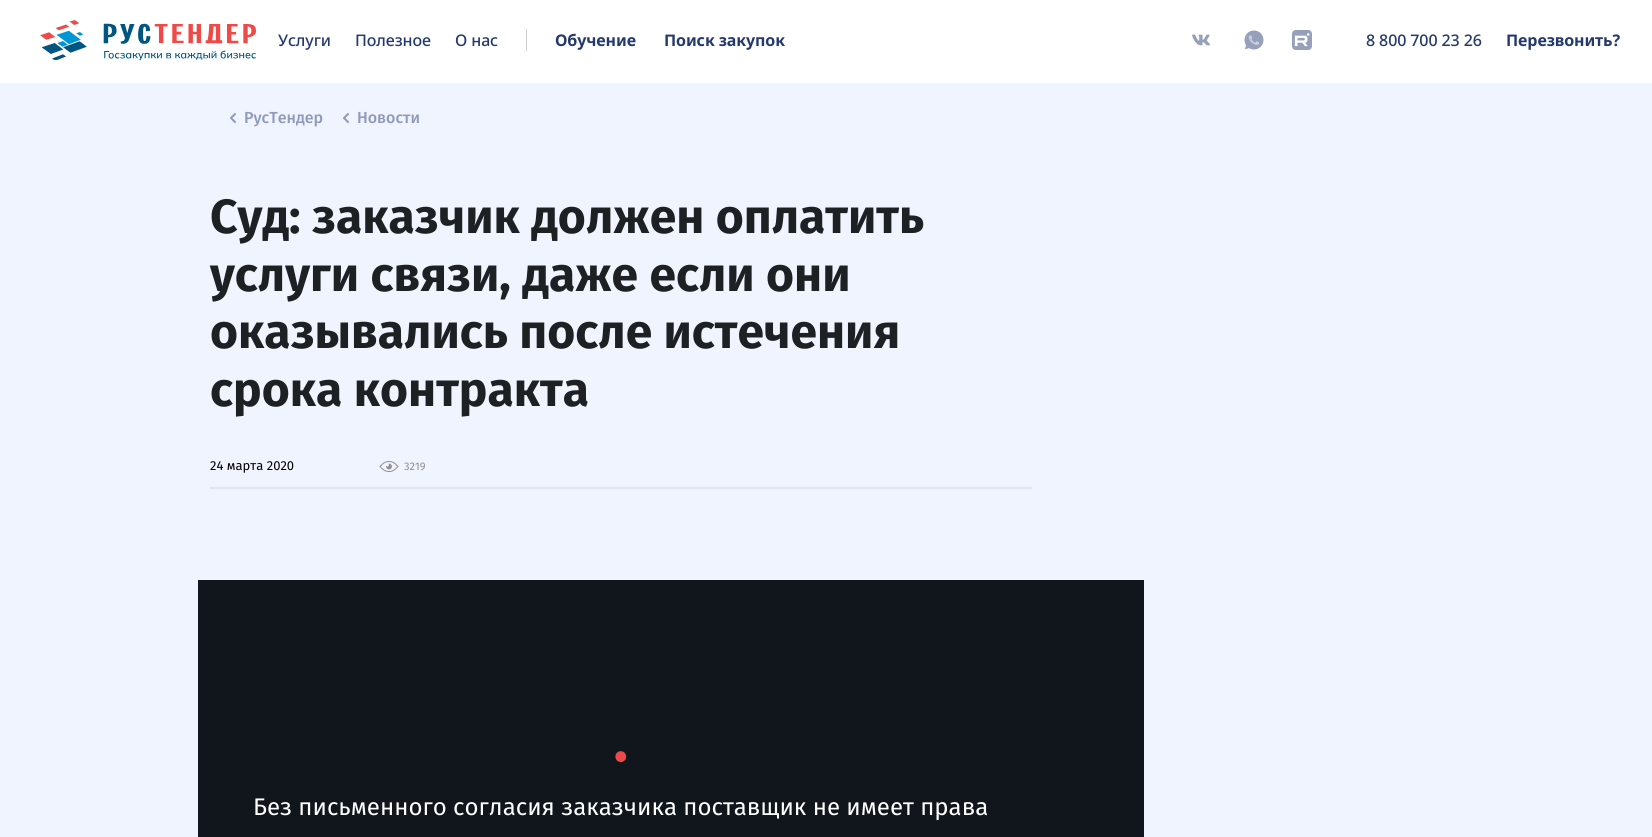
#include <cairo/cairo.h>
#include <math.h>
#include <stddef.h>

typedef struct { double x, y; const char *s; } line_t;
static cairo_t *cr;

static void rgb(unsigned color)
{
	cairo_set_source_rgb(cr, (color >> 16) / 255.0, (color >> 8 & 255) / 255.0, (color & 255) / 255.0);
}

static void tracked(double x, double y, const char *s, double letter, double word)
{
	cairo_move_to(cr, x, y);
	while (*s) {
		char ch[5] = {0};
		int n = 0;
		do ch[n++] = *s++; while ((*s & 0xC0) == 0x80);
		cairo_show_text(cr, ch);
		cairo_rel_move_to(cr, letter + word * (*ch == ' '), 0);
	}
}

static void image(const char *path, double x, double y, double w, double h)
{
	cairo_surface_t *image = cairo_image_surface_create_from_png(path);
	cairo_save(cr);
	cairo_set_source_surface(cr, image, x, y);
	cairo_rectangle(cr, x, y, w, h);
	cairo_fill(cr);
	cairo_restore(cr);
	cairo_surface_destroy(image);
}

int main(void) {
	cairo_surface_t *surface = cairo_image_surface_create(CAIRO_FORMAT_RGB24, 1652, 837);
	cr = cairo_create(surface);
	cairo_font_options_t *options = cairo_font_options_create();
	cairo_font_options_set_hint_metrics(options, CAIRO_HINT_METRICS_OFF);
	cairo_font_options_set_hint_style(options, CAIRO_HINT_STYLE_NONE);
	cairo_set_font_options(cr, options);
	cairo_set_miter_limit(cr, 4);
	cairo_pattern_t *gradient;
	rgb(0xffffff);
	cairo_paint(cr);
	image("img/1.png", 40, 20, 216, 40);
	rgb(0xcbcfdc);
	cairo_rectangle(cr, 526, 29, 1, 22);
	cairo_fill(cr);
	image("img/2.png", 1192, 34, 18, 12);
	image("img/3.png", 1244, 30, 20, 20);
	image("img/4.png", 1292, 30, 20, 20);
	rgb(0xf0f4ff);
	cairo_rectangle(cr, 0, 83, 1652, 754);
	cairo_fill(cr);
	cairo_new_path(cr);
	cairo_move_to(cr, 235, 114);
	cairo_line_to(cr, 231, 118);
	cairo_line_to(cr, 235, 122);
	rgb(0x8f9ab9);
	cairo_set_line_cap(cr, CAIRO_LINE_CAP_ROUND);
	cairo_set_line_join(cr, CAIRO_LINE_JOIN_ROUND);
	cairo_stroke(cr);
	cairo_new_path(cr);
	cairo_move_to(cr, 348, 114);
	cairo_line_to(cr, 344, 118);
	cairo_line_to(cr, 348, 122);
	cairo_stroke(cr);
	image("img/5.png", 379, 461, 20, 11);
	gradient = cairo_pattern_create_linear(621, 472, 621, 504);
	cairo_pattern_add_color_stop_rgba(gradient, 0.44, 0.941, 0.957, 1, 1);
	cairo_pattern_add_color_stop_rgba(gradient, 0.5, 0.863, 0.882, 0.945, 1);
	cairo_pattern_add_color_stop_rgba(gradient, 0.56, 0.941, 0.957, 1, 1);
	cairo_set_source(cr, gradient);
	cairo_pattern_destroy(gradient);
	cairo_rectangle(cr, 210, 486, 822, 4);
	cairo_fill(cr);
	rgb(0x11161d);
	cairo_rectangle(cr, 198, 580, 946, 257);
	cairo_fill(cr);
	cairo_select_font_face(cr, "Noto Sans Medium", CAIRO_FONT_SLANT_NORMAL, CAIRO_FONT_WEIGHT_NORMAL);
	cairo_set_font_size(cr, 16);
	rgb(0x25396e);
	{
		static const line_t items[] = {
			{278, 46, "Услуги"},
			{355, 46, "Полезное"},
			{455, 46, "О нас"},
		};
		for (size_t i = 0; i < sizeof items / sizeof *items; i++) {
			tracked(items[i].x, items[i].y, items[i].s, -0.1, 0);
		}
	}
	cairo_select_font_face(cr, "Noto Sans", CAIRO_FONT_SLANT_NORMAL, CAIRO_FONT_WEIGHT_BOLD);
	tracked(555, 46, "Обучение", -0.1, 0);
	tracked(664, 46, "Поиск закупок", -0.1, 0);
	cairo_select_font_face(cr, "Noto Sans Medium", CAIRO_FONT_SLANT_NORMAL, CAIRO_FONT_WEIGHT_NORMAL);
	tracked(1366, 46, "8 800 700 23 26", -0.1, 0);
	cairo_select_font_face(cr, "Noto Sans", CAIRO_FONT_SLANT_NORMAL, CAIRO_FONT_WEIGHT_BOLD);
	tracked(1506, 46, "Перезвонить?", -0.1, 0);
	cairo_select_font_face(cr, "Fira Sans Medium", CAIRO_FONT_SLANT_NORMAL, CAIRO_FONT_WEIGHT_NORMAL);
	rgb(0x8f9ab9);
	cairo_move_to(cr, 244, 123);
	cairo_show_text(cr, "РусТендер");
	cairo_move_to(cr, 357, 123);
	cairo_show_text(cr, "Новости");
	cairo_select_font_face(cr, "Fira Sans", CAIRO_FONT_SLANT_NORMAL, CAIRO_FONT_WEIGHT_BOLD);
	cairo_set_font_size(cr, 48);
	rgb(0x1e2123);
	{
		static const line_t items[] = {
			{210, 233, "Суд: заказчик должен оплатить"},
			{210, 291, "услуги связи, даже если они"},
			{210, 348, "оказывались после истечения"},
			{210, 406, "срока контракта"},
		};
		for (size_t i = 0; i < sizeof items / sizeof *items; i++) {
			cairo_move_to(cr, items[i].x, items[i].y);
			cairo_show_text(cr, items[i].s);
		}
	}
	cairo_select_font_face(cr, "Fira Sans", CAIRO_FONT_SLANT_NORMAL, CAIRO_FONT_WEIGHT_NORMAL);
	cairo_set_font_size(cr, 13);
	rgb(0x000000);
	cairo_move_to(cr, 210, 470);
	cairo_show_text(cr, "24 марта 2020");
	cairo_set_font_size(cr, 11);
	rgb(0x8e8e8e);
	cairo_move_to(cr, 404, 470);
	cairo_show_text(cr, "3219");
	cairo_set_font_size(cr, 48);
	rgb(0xec4949);
	cairo_move_to(cr, 613, 773);
	cairo_show_text(cr, "•");
	cairo_set_font_size(cr, 24);
	rgb(0xffffff);
	cairo_move_to(cr, 253, 815);
	cairo_show_text(cr, "Без письменного согласия заказчика поставщик не имеет права");
	cairo_surface_write_to_png(surface, "page.png");
	cairo_font_options_destroy(options);
	cairo_destroy(cr);
	cairo_surface_destroy(surface);
	return 0;
}
